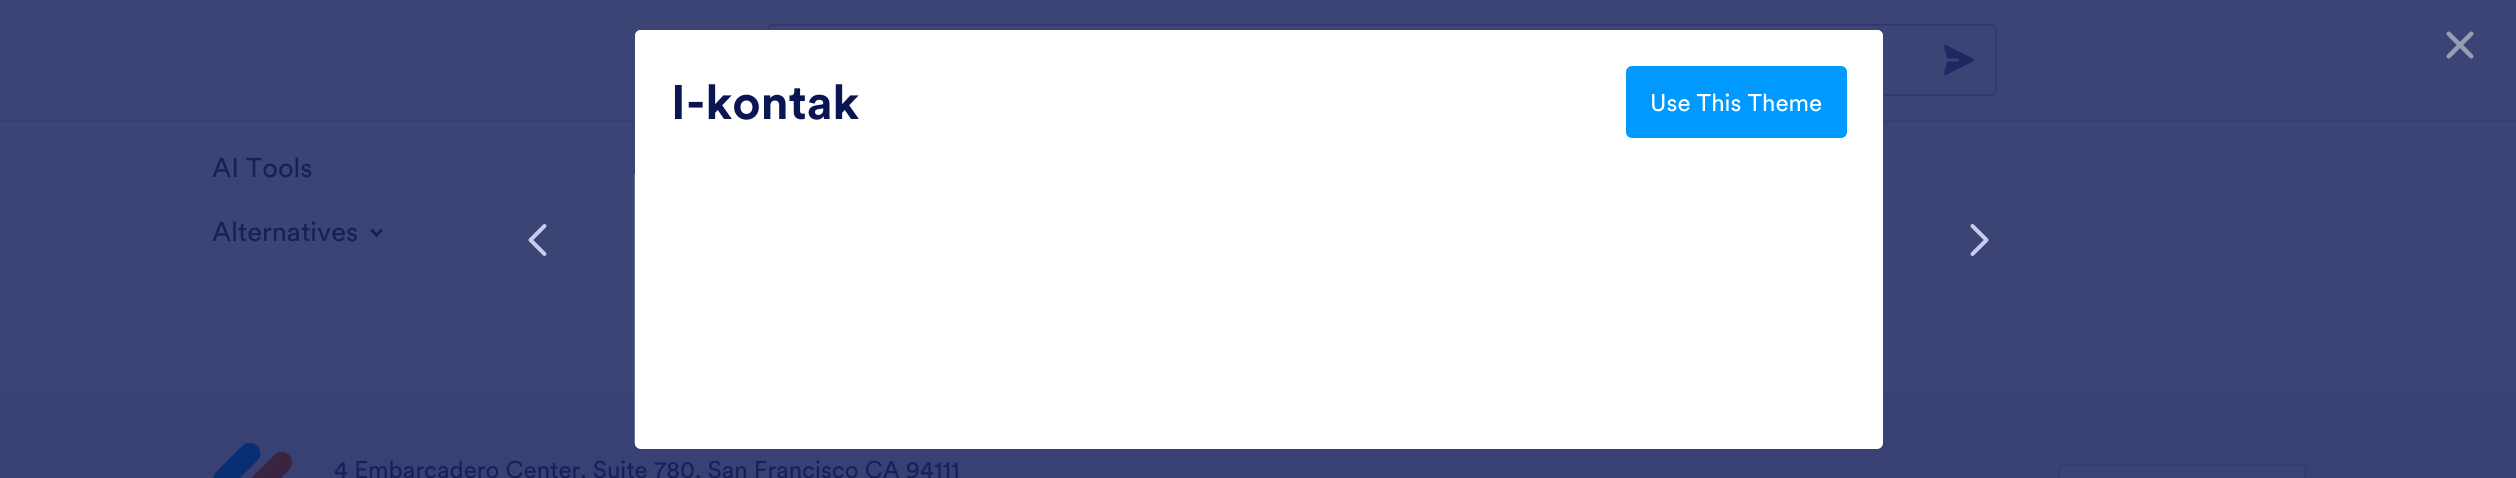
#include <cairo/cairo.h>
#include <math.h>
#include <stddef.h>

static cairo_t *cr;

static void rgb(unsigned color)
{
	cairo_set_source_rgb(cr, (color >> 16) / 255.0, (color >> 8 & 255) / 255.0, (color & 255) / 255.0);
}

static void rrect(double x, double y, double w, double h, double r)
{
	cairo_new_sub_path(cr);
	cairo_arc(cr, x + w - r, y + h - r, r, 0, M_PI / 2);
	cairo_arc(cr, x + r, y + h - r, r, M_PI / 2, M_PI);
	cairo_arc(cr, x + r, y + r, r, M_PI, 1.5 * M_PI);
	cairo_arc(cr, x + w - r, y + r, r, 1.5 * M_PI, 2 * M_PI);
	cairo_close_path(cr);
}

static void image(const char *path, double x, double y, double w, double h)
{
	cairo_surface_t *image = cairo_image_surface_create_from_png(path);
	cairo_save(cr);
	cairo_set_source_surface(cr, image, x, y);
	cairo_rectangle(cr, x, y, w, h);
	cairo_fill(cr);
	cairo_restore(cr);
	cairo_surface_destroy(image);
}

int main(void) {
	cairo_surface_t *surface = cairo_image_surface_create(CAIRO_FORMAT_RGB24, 2516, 478);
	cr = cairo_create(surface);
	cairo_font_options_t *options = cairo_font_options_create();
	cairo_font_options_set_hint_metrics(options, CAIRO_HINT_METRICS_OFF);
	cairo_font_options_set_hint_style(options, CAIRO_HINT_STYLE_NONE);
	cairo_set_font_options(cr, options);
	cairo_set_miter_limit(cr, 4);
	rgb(0x3b4474);
	cairo_paint(cr);
	rgb(0x353f72);
	cairo_rectangle(cr, 0, 120, 2516, 2);
	cairo_fill(cr);
	rrect(768, 25, 1228, 70, 5);
	rgb(0x303a70);
	cairo_stroke(cr);
	image("img/1.png", 1944, 45, 30, 30);
	image("img/2.png", 2446, 31, 28, 28);
	rgb(0x394174);
	cairo_rectangle(cr, 0, 393, 2516, 85);
	cairo_fill(cr);
	rgb(0xffffff);
	rrect(635, 30, 1248, 419, 6);
	cairo_fill(cr);
	cairo_new_path(cr);
	cairo_move_to(cr, 641, 30);
	cairo_line_to(cr, 1877, 30);
	cairo_curve_to(cr, 1880.5, 30, 1883, 32.5, 1883, 36);
	cairo_line_to(cr, 1883, 174);
	cairo_line_to(cr, 635, 174);
	cairo_line_to(cr, 635, 36);
	cairo_curve_to(cr, 635, 32.5, 637.5, 30, 641, 30);
	cairo_close_path(cr);
	cairo_fill(cr);
	rgb(0x0099ff);
	rrect(1626, 66, 221, 72, 6);
	cairo_fill(cr);
	image("img/3.png", 634, 174, 7, 275);
	image("img/4.png", 528, 224, 19, 32);
	image("img/5.png", 1970, 224, 19, 32);
	rgb(0x16205a);
	cairo_new_path(cr);
	cairo_move_to(cr, 383, 230.5);
	cairo_line_to(cr, 376.5, 237);
	cairo_line_to(cr, 374.5, 235);
	cairo_line_to(cr, 381, 228.5);
	cairo_close_path(cr);
	cairo_fill(cr);
	cairo_new_path(cr);
	cairo_move_to(cr, 378.5, 235);
	cairo_line_to(cr, 376.5, 237);
	cairo_line_to(cr, 370, 230.5);
	cairo_line_to(cr, 372.5, 228.5);
	cairo_close_path(cr);
	cairo_fill(cr);
	image("img/6.png", 213, 443, 80, 35);
	rgb(0x3b4474);
	rrect(2059, 465, 246, 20, 5);
	cairo_fill_preserve(cr);
	rgb(0x333d73);
	cairo_stroke(cr);
	cairo_select_font_face(cr, "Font", CAIRO_FONT_SLANT_NORMAL, CAIRO_FONT_WEIGHT_BOLD);
	cairo_set_font_size(cr, 48);
	rgb(0x0a1551);
	cairo_move_to(cr, 671, 119);
	cairo_show_text(cr, "I-kontak");
	cairo_select_font_face(cr, "Font", CAIRO_FONT_SLANT_NORMAL, CAIRO_FONT_WEIGHT_NORMAL);
	cairo_set_font_size(cr, 24);
	rgb(0xffffff);
	cairo_move_to(cr, 1650, 111);
	cairo_show_text(cr, "Use This Theme");
	cairo_set_font_size(cr, 27);
	rgb(0x16205a);
	cairo_move_to(cr, 212, 177);
	cairo_show_text(cr, "AI Tools");
	cairo_move_to(cr, 212, 241);
	cairo_show_text(cr, "Alternatives");
	cairo_set_font_size(cr, 24);
	cairo_move_to(cr, 334, 478);
	cairo_show_text(cr, "4 Embarcadero Center, Suite 780, San Francisco CA 94111");
	cairo_surface_write_to_png(surface, "page.png");
	cairo_font_options_destroy(options);
	cairo_destroy(cr);
	cairo_surface_destroy(surface);
	return 0;
}
